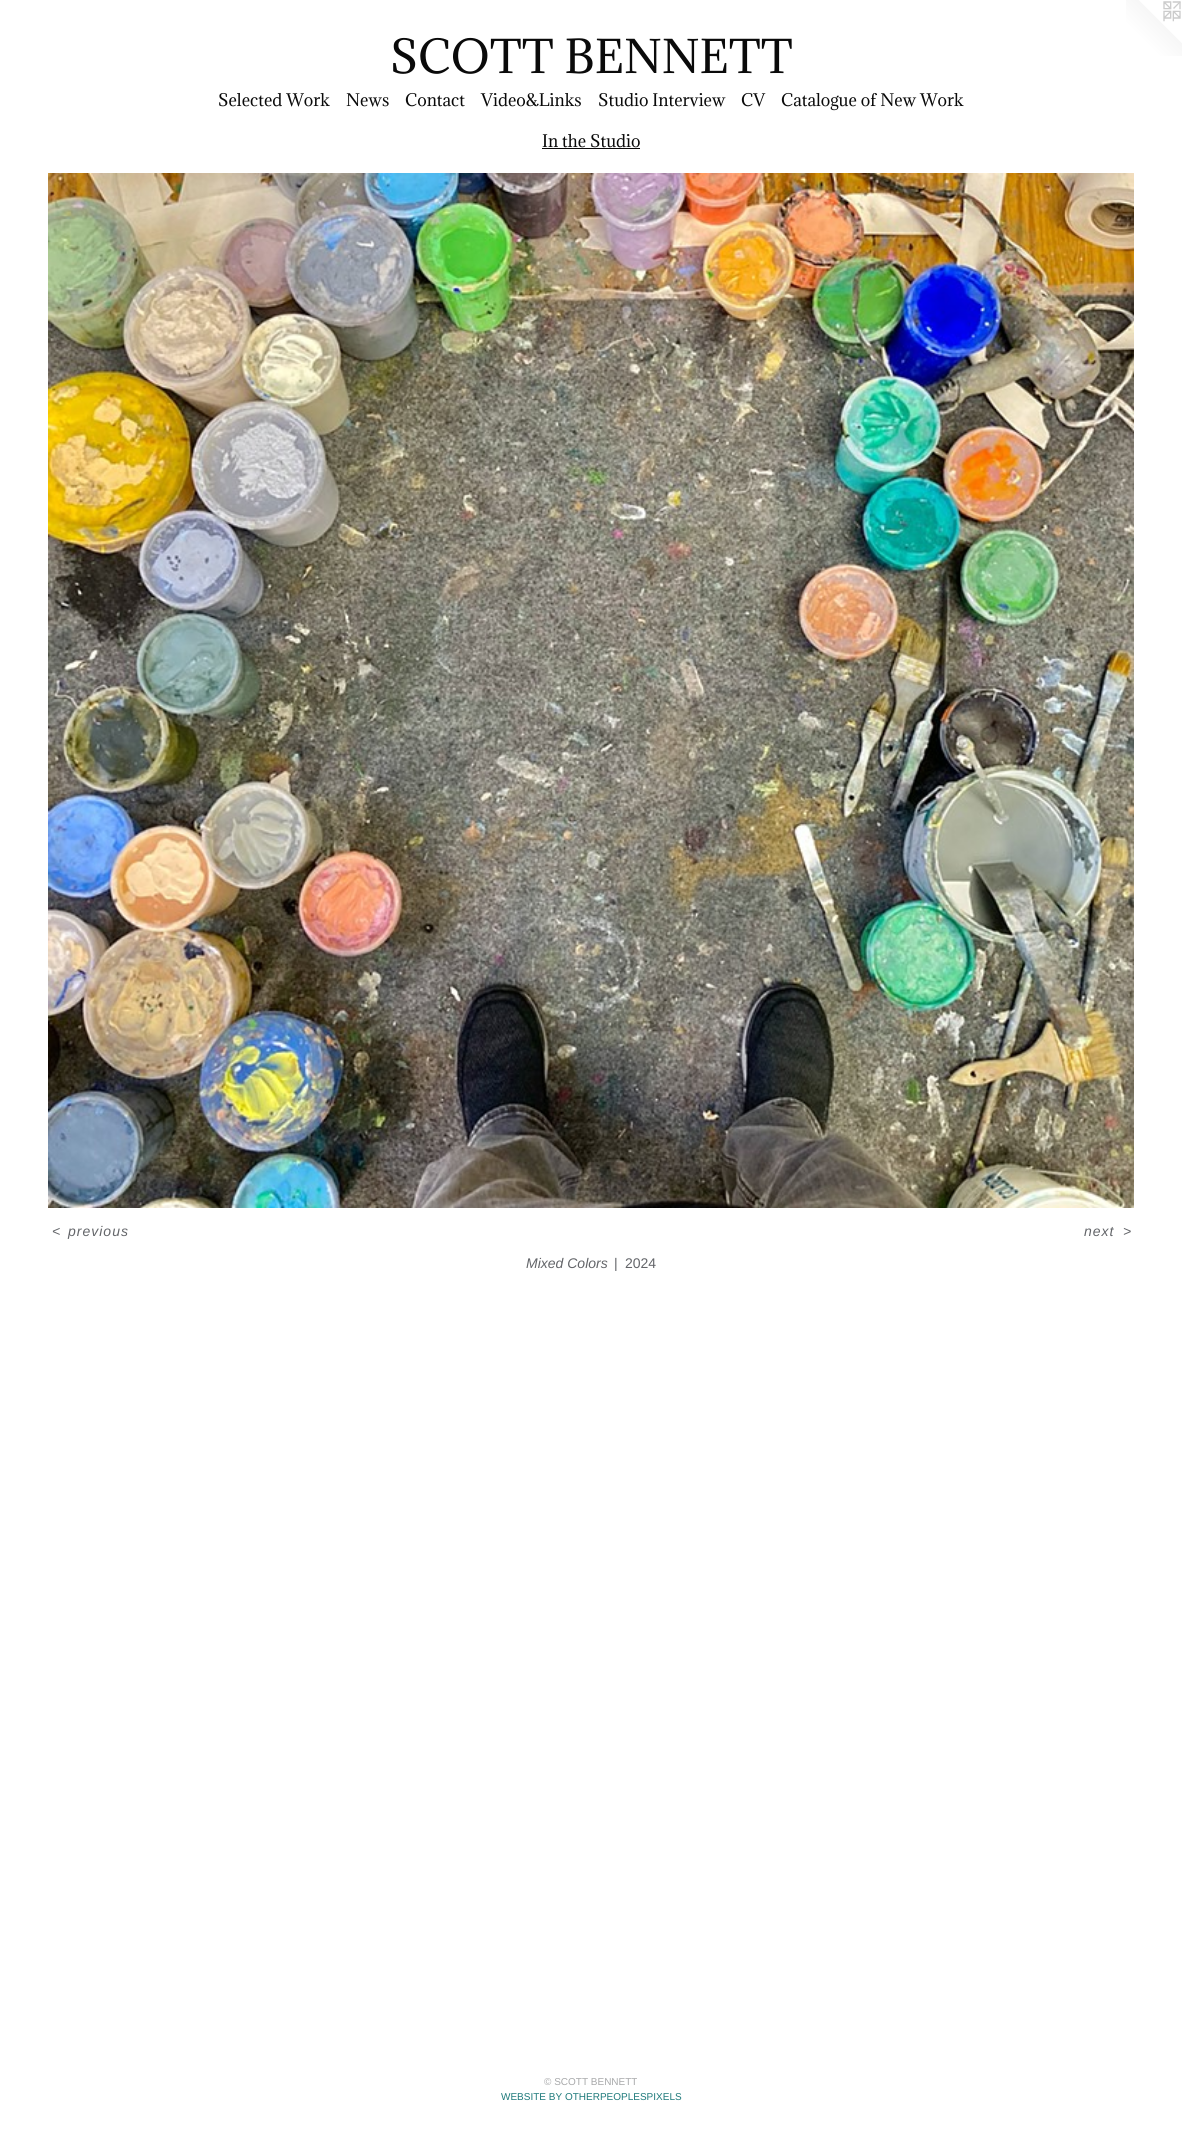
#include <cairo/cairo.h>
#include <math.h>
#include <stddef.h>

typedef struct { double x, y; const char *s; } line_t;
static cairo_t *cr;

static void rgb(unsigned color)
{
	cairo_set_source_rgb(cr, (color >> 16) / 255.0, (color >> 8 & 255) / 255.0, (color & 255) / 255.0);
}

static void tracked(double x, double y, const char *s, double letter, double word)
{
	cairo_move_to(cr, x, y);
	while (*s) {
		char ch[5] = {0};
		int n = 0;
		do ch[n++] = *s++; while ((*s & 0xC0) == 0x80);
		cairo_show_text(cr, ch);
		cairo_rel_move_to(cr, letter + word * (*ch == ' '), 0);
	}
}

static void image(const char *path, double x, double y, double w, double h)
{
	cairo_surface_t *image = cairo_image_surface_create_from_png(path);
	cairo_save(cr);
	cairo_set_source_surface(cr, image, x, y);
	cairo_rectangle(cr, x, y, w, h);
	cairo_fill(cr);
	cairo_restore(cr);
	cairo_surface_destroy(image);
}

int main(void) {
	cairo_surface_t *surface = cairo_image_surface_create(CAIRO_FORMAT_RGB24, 1182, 2154);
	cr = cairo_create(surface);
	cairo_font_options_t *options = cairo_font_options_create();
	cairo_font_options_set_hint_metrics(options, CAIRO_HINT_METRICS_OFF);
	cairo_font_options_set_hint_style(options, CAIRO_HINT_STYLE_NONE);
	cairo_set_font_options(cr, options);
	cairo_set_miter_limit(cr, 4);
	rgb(0xffffff);
	cairo_paint(cr);
	image("img/1.png", 1126, 0, 56, 56);
	rgb(0x0b0909);
	cairo_rectangle(cr, 542, 148, 98, 1);
	cairo_fill(cr);
	image("img/2.png", 48, 173, 1086, 1035);
	cairo_select_font_face(cr, "Adamina", CAIRO_FONT_SLANT_NORMAL, CAIRO_FONT_WEIGHT_NORMAL);
	cairo_set_font_size(cr, 43);
	rgb(0x0a0a0a);
	cairo_move_to(cr, 390, 73);
	cairo_show_text(cr, "SCOTT BENNETT");
	cairo_set_font_size(cr, 16);
	{
		static const line_t items[] = {
			{218, 106, "Selected Work"},
			{346, 106, "News"},
			{405, 106, "Contact"},
			{481, 106, "Video&Links"},
			{598, 106, "Studio Interview"},
			{741, 106, "CV"},
			{781, 106, "Catalogue of New Work"},
			{542, 147, "In the Studio"},
		};
		for (size_t i = 0; i < sizeof items / sizeof *items; i++) {
			cairo_move_to(cr, items[i].x, items[i].y);
			cairo_show_text(cr, items[i].s);
		}
	}
	cairo_select_font_face(cr, "Liberation Sans", CAIRO_FONT_SLANT_ITALIC, CAIRO_FONT_WEIGHT_NORMAL);
	cairo_set_font_size(cr, 14);
	rgb(0x636569);
	{
		static const line_t items[] = {
			{52, 1236, "<"},
			{68, 1236, "previous"},
			{1084, 1236, "next"},
			{1123, 1236, ">"},
		};
		for (size_t i = 0; i < sizeof items / sizeof *items; i++) {
			tracked(items[i].x, items[i].y, items[i].s, 1, 0);
		}
	}
	cairo_move_to(cr, 526, 1268);
	cairo_show_text(cr, "Mixed Colors");
	cairo_select_font_face(cr, "Liberation Sans", CAIRO_FONT_SLANT_NORMAL, CAIRO_FONT_WEIGHT_NORMAL);
	cairo_move_to(cr, 614, 1268);
	cairo_show_text(cr, "|");
	cairo_move_to(cr, 625, 1268);
	cairo_show_text(cr, "2024");
	cairo_set_font_size(cr, 10);
	rgb(0xa7a8a9);
	cairo_move_to(cr, 544, 2085);
	cairo_show_text(cr, "© SCOTT BENNETT");
	rgb(0x1e7a7b);
	cairo_move_to(cr, 501, 2100);
	cairo_show_text(cr, "WEBSITE BY OTHERPEOPLESPIXELS");
	cairo_surface_write_to_png(surface, "page.png");
	cairo_font_options_destroy(options);
	cairo_destroy(cr);
	cairo_surface_destroy(surface);
	return 0;
}
